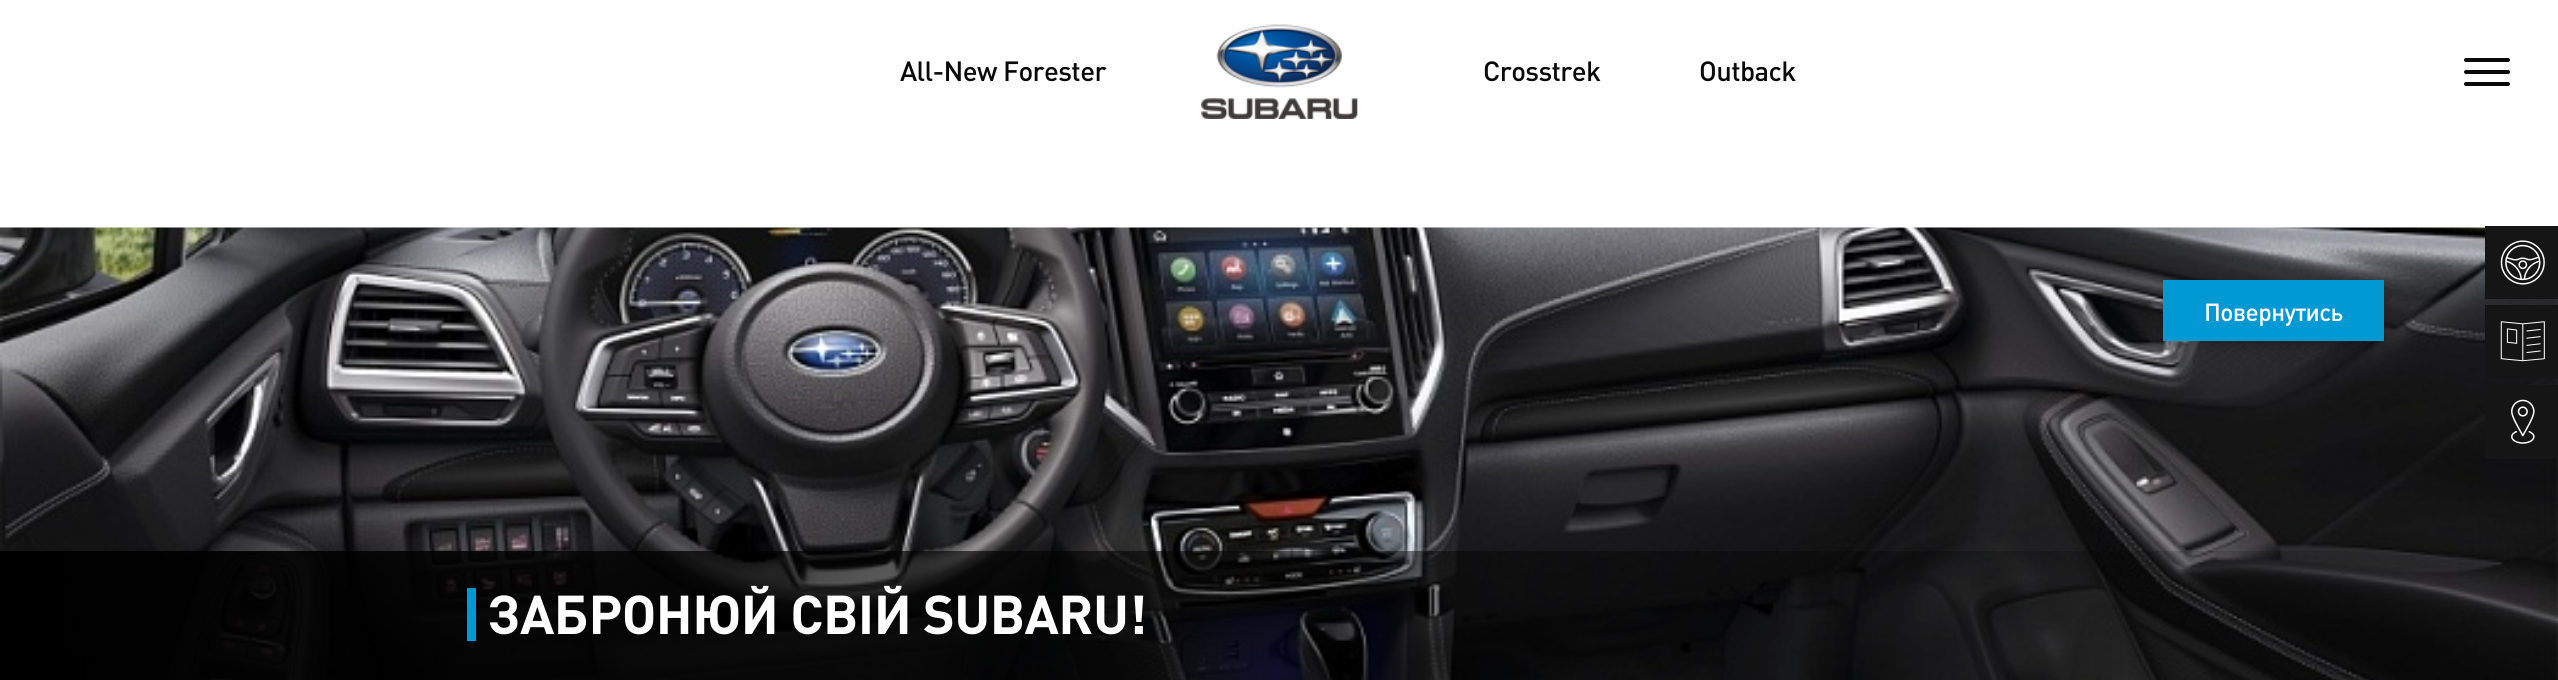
#include <cairo/cairo.h>
#include <math.h>
#include <stddef.h>

typedef struct { double x, y; const char *s; } line_t;
static cairo_t *cr;

static void rgb(unsigned color)
{
	cairo_set_source_rgb(cr, (color >> 16) / 255.0, (color >> 8 & 255) / 255.0, (color & 255) / 255.0);
}

static void tracked(double x, double y, const char *s, double letter, double word)
{
	cairo_move_to(cr, x, y);
	while (*s) {
		char ch[5] = {0};
		int n = 0;
		do ch[n++] = *s++; while ((*s & 0xC0) == 0x80);
		cairo_show_text(cr, ch);
		cairo_rel_move_to(cr, letter + word * (*ch == ' '), 0);
	}
}

static void rrect(double x, double y, double w, double h, double r)
{
	cairo_new_sub_path(cr);
	cairo_arc(cr, x + w - r, y + h - r, r, 0, M_PI / 2);
	cairo_arc(cr, x + r, y + h - r, r, M_PI / 2, M_PI);
	cairo_arc(cr, x + r, y + r, r, M_PI, 1.5 * M_PI);
	cairo_arc(cr, x + w - r, y + r, r, 1.5 * M_PI, 2 * M_PI);
	cairo_close_path(cr);
}

static void soft_shadow(double x, double y, double w, double h, double r, double blur, double alpha)
{
	cairo_push_group_with_content(cr, CAIRO_CONTENT_ALPHA);
	cairo_set_operator(cr, CAIRO_OPERATOR_SOURCE);
	for (int i = 15; i >= -15 && fmin(w, h) + blur * i / 3 > 0; i -= 2) {
		double e = blur * i / 6;
		cairo_set_source_rgba(cr, 0, 0, 0, alpha * erfc((i - 1) / 8.5) / 2);
		rrect(x - e, y - e, w + 2 * e, h + 2 * e, fmax(0, fmin(r + e + blur * .6, fmin(w, h) / 2 + e)));
		cairo_fill(cr);
	}
	cairo_pattern_t *soft = cairo_pop_group(cr);
	cairo_mask(cr, soft);
	cairo_pattern_destroy(soft);
}

static void image(const char *path, double x, double y, double w, double h)
{
	cairo_surface_t *image = cairo_image_surface_create_from_png(path);
	cairo_save(cr);
	cairo_set_source_surface(cr, image, x, y);
	cairo_rectangle(cr, x, y, w, h);
	cairo_fill(cr);
	cairo_restore(cr);
	cairo_surface_destroy(image);
}

int main(void) {
	cairo_surface_t *surface = cairo_image_surface_create(CAIRO_FORMAT_RGB24, 2558, 680);
	cr = cairo_create(surface);
	cairo_font_options_t *options = cairo_font_options_create();
	cairo_font_options_set_hint_metrics(options, CAIRO_HINT_METRICS_OFF);
	cairo_font_options_set_hint_style(options, CAIRO_HINT_STYLE_NONE);
	cairo_set_font_options(cr, options);
	cairo_set_miter_limit(cr, 4);
	rgb(0xffffff);
	cairo_paint(cr);
	image("img/1.png", 1201, 24, 157, 95);
	rgb(0x0a0a0a);
	rrect(2464, 70, 46, 4, 2);
	cairo_fill(cr);
	rrect(2464, 58, 46, 4, 2);
	cairo_fill(cr);
	rrect(2464, 82, 46, 4, 2);
	cairo_fill(cr);
	image("img/2.png", 0, 227, 2558, 453);
	rgb(0x000000);
	soft_shadow(2163, 285, 221, 62, 0, 5, 0.2);
	rgb(0x0099d4);
	cairo_rectangle(cr, 2163, 280, 221, 61);
	cairo_fill(cr);
	cairo_save(cr);
	cairo_rectangle(cr, 467, 588, 1624, 53);
	cairo_clip(cr);
	cairo_set_fill_rule(cr, CAIRO_FILL_RULE_EVEN_ODD);
	cairo_new_path(cr);
	cairo_move_to(cr, 294, 415);
	cairo_line_to(cr, 2264, 415);
	cairo_line_to(cr, 2264, 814);
	cairo_line_to(cr, 294, 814);
	cairo_close_path(cr);
	cairo_move_to(cr, 478, 586);
	cairo_line_to(cr, 2102, 586);
	cairo_curve_to(cr, 2103, 586, 2104, 587, 2104, 588);
	cairo_line_to(cr, 2104, 640);
	cairo_curve_to(cr, 2104, 641, 2103, 642, 2102, 642);
	cairo_line_to(cr, 478, 642);
	cairo_curve_to(cr, 477, 642, 476, 641, 476, 640);
	cairo_line_to(cr, 476, 588);
	cairo_curve_to(cr, 476, 587, 477, 586, 478, 586);
	cairo_close_path(cr);
	cairo_fill(cr);
	cairo_restore(cr);
	rgb(0x151515);
	cairo_rectangle(cr, 2485, 226, 73, 73);
	cairo_fill(cr);
	image("img/3.png", 2500, 240, 45, 45);
	cairo_rectangle(cr, 2485, 305, 73, 73);
	cairo_fill(cr);
	image("img/4.png", 2500, 321, 45, 41);
	cairo_rectangle(cr, 2485, 385, 73, 74);
	cairo_fill(cr);
	image("img/5.png", 2511, 399, 24, 45);
	cairo_select_font_face(cr, "DIN Medium", CAIRO_FONT_SLANT_NORMAL, CAIRO_FONT_WEIGHT_NORMAL);
	cairo_set_font_size(cr, 27.5);
	rgb(0x0a0a0a);
	{
		static const line_t items[] = {
			{900, 81, "All-New Forester"},
			{1483, 81, "Crosstrek"},
			{1699, 81, "Outback"},
		};
		for (size_t i = 0; i < sizeof items / sizeof *items; i++) {
			tracked(items[i].x, items[i].y, items[i].s, -0.6, 0);
		}
	}
	cairo_set_font_size(cr, 24.5);
	rgb(0xffffff);
	tracked(2204, 321, "Повернутись", -0.6, 0);
	cairo_select_font_face(cr, "DIN", CAIRO_FONT_SLANT_NORMAL, CAIRO_FONT_WEIGHT_BOLD);
	cairo_set_font_size(cr, 53.9);
	tracked(488, 634, "ЗАБРОНЮЙ СВІЙ SUBARU!", -0.6, 0);
	cairo_surface_write_to_png(surface, "page.png");
	cairo_font_options_destroy(options);
	cairo_destroy(cr);
	cairo_surface_destroy(surface);
	return 0;
}
